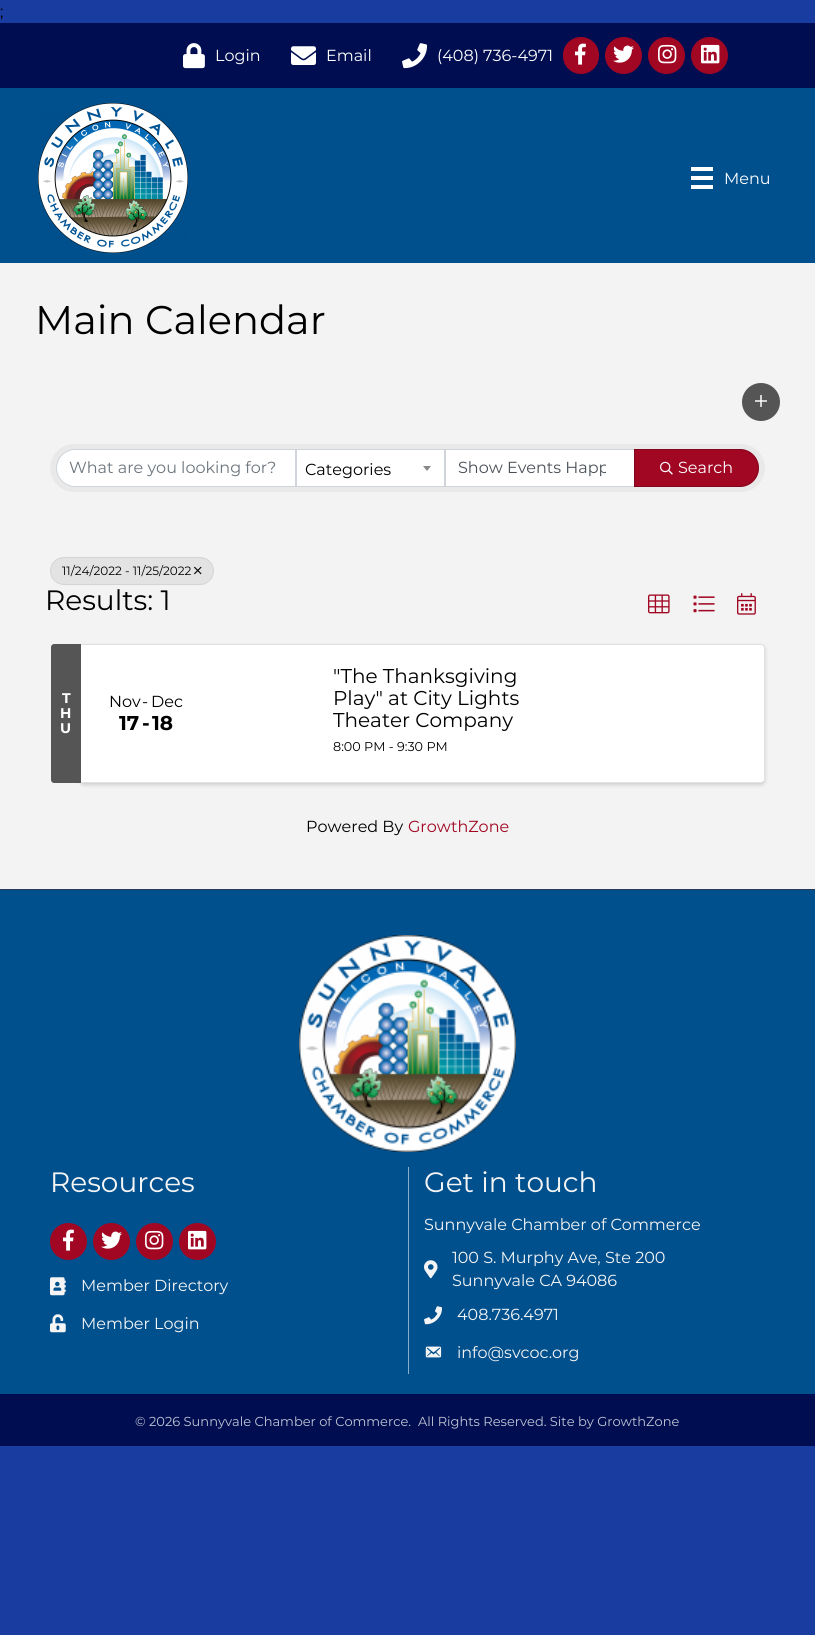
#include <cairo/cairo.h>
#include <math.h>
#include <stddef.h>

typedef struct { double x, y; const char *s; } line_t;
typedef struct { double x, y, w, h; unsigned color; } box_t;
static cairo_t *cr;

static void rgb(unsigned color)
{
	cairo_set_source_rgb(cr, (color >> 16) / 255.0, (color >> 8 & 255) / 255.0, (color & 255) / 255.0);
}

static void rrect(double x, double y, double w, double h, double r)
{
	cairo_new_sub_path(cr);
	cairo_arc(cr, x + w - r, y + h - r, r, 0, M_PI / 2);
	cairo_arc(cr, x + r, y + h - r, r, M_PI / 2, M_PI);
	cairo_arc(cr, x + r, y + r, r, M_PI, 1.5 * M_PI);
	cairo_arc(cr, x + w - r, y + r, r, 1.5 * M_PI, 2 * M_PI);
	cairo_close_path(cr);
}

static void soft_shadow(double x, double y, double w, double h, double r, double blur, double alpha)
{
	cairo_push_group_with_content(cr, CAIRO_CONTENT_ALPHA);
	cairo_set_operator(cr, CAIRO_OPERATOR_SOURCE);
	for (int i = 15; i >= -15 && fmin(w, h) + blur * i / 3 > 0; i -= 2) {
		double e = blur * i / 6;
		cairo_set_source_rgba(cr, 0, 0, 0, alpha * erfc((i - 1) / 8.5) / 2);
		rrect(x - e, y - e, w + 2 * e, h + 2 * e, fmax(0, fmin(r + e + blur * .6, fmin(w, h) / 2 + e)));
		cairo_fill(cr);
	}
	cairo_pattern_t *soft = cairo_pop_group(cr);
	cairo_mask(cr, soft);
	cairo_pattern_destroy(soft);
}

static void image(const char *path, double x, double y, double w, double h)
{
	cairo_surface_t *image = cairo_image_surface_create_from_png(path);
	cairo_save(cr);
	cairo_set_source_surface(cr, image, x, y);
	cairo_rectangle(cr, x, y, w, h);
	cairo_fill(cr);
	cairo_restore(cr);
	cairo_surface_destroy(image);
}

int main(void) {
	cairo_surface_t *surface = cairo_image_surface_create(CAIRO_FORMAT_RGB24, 815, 1635);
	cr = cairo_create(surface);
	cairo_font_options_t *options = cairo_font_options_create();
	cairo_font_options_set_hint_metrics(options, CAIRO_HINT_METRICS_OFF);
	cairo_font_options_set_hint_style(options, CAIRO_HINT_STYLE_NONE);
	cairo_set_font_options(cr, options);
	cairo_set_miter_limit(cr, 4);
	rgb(0x183ca0);
	cairo_paint(cr);
	rgb(0x000e51);
	cairo_rectangle(cr, 0, 23, 815, 65);
	cairo_fill(cr);
	image("img/1.png", 183, 43, 22, 26);
	image("img/2.png", 291, 46, 25, 19);
	image("img/3.png", 402, 43, 26, 26);
	rgb(0xa10623);
	rrect(563, 37, 36, 37, 18);
	cairo_fill(cr);
	image("img/4.png", 575, 43, 11, 22);
	cairo_arc(cr, 623.5, 55.5, 18.5, 0, 2 * M_PI);
	cairo_fill(cr);
	image("img/5.png", 613, 45, 21, 18);
	cairo_arc(cr, 666.5, 55.5, 18.5, 0, 2 * M_PI);
	cairo_fill(cr);
	image("img/6.png", 658, 44, 19, 20);
	cairo_arc(cr, 709.5, 55.5, 18.5, 0, 2 * M_PI);
	cairo_fill(cr);
	image("img/7.png", 701, 44, 19, 20);
	rgb(0x00508e);
	cairo_rectangle(cr, 0, 88, 815, 175);
	cairo_fill(cr);
	image("img/8.png", 38, 103, 150, 150);
	{
		static const box_t items[] = {
			{691, 167, 22, 4, 0xffffff},
			{691, 176, 22, 4, 0xffffff},
			{691, 185, 22, 4, 0xffffff},
			{0, 263, 815, 626, 0xf3f3f3},
		};
		for (size_t i = 0; i < sizeof items / sizeof *items; i++) {
			rgb(items[i].color);
			cairo_rectangle(cr, items[i].x, items[i].y, items[i].w, items[i].h);
			cairo_fill(cr);
		}
	}
	rgb(0x555555);
	cairo_arc(cr, 761, 402, 19, 0, 2 * M_PI);
	cairo_fill(cr);
	image("img/9.png", 755, 395, 12, 12);
	rgb(0xe9e9e9);
	rrect(50, 444, 715, 48, 24);
	cairo_fill(cr);
	rgb(0xffffff);
	cairo_new_path(cr);
	cairo_move_to(cr, 75, 449.5);
	cairo_line_to(cr, 295.5, 449.5);
	cairo_line_to(cr, 295.5, 486.5);
	cairo_line_to(cr, 75, 486.5);
	cairo_curve_to(cr, 65, 486.5, 56.5, 478, 56.5, 468);
	cairo_curve_to(cr, 56.5, 458, 65, 449.5, 75, 449.5);
	cairo_close_path(cr);
	cairo_fill_preserve(cr);
	rgb(0xced4da);
	cairo_set_line_width(cr, 1);
	cairo_stroke(cr);
	rgb(0xffffff);
	cairo_rectangle(cr, 296.5, 449.5, 148, 37);
	cairo_fill_preserve(cr);
	rgb(0xced4da);
	cairo_stroke(cr);
	rgb(0x888888);
	cairo_new_path(cr);
	cairo_move_to(cr, 423, 466);
	cairo_line_to(cr, 431, 466);
	cairo_line_to(cr, 427, 471);
	cairo_close_path(cr);
	cairo_fill(cr);
	rgb(0xffffff);
	cairo_rectangle(cr, 445.5, 449.5, 189, 37);
	cairo_fill_preserve(cr);
	rgb(0xced4da);
	cairo_stroke(cr);
	rgb(0xa10623);
	cairo_new_path(cr);
	cairo_move_to(cr, 634, 449);
	cairo_line_to(cr, 740, 449);
	cairo_curve_to(cr, 750.5, 449, 759, 457.5, 759, 468);
	cairo_curve_to(cr, 759, 478.5, 750.5, 487, 740, 487);
	cairo_line_to(cr, 634, 487);
	cairo_close_path(cr);
	cairo_fill(cr);
	cairo_new_path(cr);
	cairo_move_to(cr, 634.5, 449.5);
	cairo_line_to(cr, 740, 449.5);
	cairo_curve_to(cr, 750, 449.5, 758.5, 458, 758.5, 468);
	cairo_curve_to(cr, 758.5, 478, 750, 486.5, 740, 486.5);
	cairo_line_to(cr, 634.5, 486.5);
	cairo_close_path(cr);
	cairo_set_source_rgba(cr, 0, 0, 0, 0.2);
	cairo_stroke(cr);
	image("img/10.png", 660, 461, 13, 14);
	rgb(0xe3e3e3);
	rrect(50, 557, 164, 28, 14);
	cairo_fill(cr);
	rrect(50.5, 557.5, 163, 27, 13.5);
	cairo_set_source_rgba(cr, 0, 0, 0, 0.07);
	cairo_stroke(cr);
	image("img/11.png", 194, 566, 8, 9);
	image("img/12.png", 648, 594, 22, 20);
	image("img/13.png", 693, 595, 22, 18);
	image("img/14.png", 737, 593, 19, 22);
	rgb(0x000000);
	soft_shadow(80, 646, 685, 139, 4, 2, 0.15);
	rgb(0xffffff);
	cairo_new_path(cr);
	cairo_move_to(cr, 80, 644);
	cairo_line_to(cr, 761, 644);
	cairo_curve_to(cr, 763, 644, 765, 646, 765, 648);
	cairo_line_to(cr, 765, 779);
	cairo_curve_to(cr, 765, 781, 763, 783, 761, 783);
	cairo_line_to(cr, 80, 783);
	cairo_close_path(cr);
	cairo_fill(cr);
	cairo_new_path(cr);
	cairo_move_to(cr, 80.5, 644.5);
	cairo_line_to(cr, 761, 644.5);
	cairo_curve_to(cr, 763, 644.5, 764.5, 646, 764.5, 648);
	cairo_line_to(cr, 764.5, 779);
	cairo_curve_to(cr, 764.5, 781, 763, 782.5, 761, 782.5);
	cairo_line_to(cr, 80.5, 782.5);
	cairo_close_path(cr);
	cairo_set_source_rgba(cr, 0, 0, 0, 0.12);
	cairo_stroke(cr);
	rgb(0x555555);
	cairo_new_path(cr);
	cairo_move_to(cr, 54, 644);
	cairo_line_to(cr, 81, 644);
	cairo_line_to(cr, 81, 783);
	cairo_line_to(cr, 54, 783);
	cairo_curve_to(cr, 52.5, 783, 51, 781.5, 51, 780);
	cairo_line_to(cr, 51, 647);
	cairo_curve_to(cr, 51, 645.5, 52.5, 644, 54, 644);
	cairo_close_path(cr);
	cairo_fill(cr);
	rgb(0x00508e);
	cairo_rectangle(cr, 0, 890, 815, 504);
	cairo_fill(cr);
	rgb(0x2c3a56);
	cairo_rectangle(cr, 0, 889, 815, 1);
	cairo_fill(cr);
	image("img/15.png", 299, 935, 217, 217);
	rgb(0xa10623);
	cairo_arc(cr, 68.5, 1241.5, 18.5, 0, 2 * M_PI);
	cairo_fill(cr);
	image("img/4.png", 63, 1229, 11, 22);
	cairo_arc(cr, 111.5, 1241.5, 18.5, 0, 2 * M_PI);
	cairo_fill(cr);
	image("img/5.png", 101, 1231, 21, 18);
	cairo_arc(cr, 154.5, 1241.5, 18.5, 0, 2 * M_PI);
	cairo_fill(cr);
	image("img/6.png", 145, 1230, 19, 20);
	cairo_arc(cr, 197.5, 1241.5, 18.5, 0, 2 * M_PI);
	cairo_fill(cr);
	image("img/7.png", 188, 1230, 19, 20);
	image("img/16.png", 50, 1277, 16, 19);
	image("img/17.png", 50, 1314, 16, 19);
	rgb(0x8aafcb);
	cairo_rectangle(cr, 408, 1167, 1, 207);
	cairo_fill(cr);
	image("img/18.png", 424, 1260, 14, 19);
	image("img/19.png", 424, 1306, 18, 19);
	image("img/20.png", 425, 1346, 17, 12);
	rgb(0x000e51);
	cairo_rectangle(cr, 0, 1394, 815, 52);
	cairo_fill(cr);
	cairo_select_font_face(cr, "Montserrat", CAIRO_FONT_SLANT_NORMAL, CAIRO_FONT_WEIGHT_NORMAL);
	cairo_set_font_size(cr, 16);
	rgb(0x000000);
	cairo_move_to(cr, 0, 17);
	cairo_show_text(cr, ";");
	rgb(0xffffff);
	{
		static const line_t items[] = {
			{215, 61, "Login"},
			{326, 61, "Email"},
			{437, 61, "(408) 736-4971"},
			{724, 184, "Menu"},
		};
		for (size_t i = 0; i < sizeof items / sizeof *items; i++) {
			cairo_move_to(cr, items[i].x, items[i].y);
			cairo_show_text(cr, items[i].s);
		}
	}
	cairo_set_font_size(cr, 40);
	rgb(0x000000);
	cairo_move_to(cr, 35, 334);
	cairo_show_text(cr, "Main Calendar");
	cairo_set_font_size(cr, 16);
	rgb(0x6c757d);
	cairo_move_to(cr, 69, 473);
	cairo_show_text(cr, "What are you looking for?");
	rgb(0x000000);
	cairo_move_to(cr, 305, 475);
	cairo_show_text(cr, "Categories");
	cairo_save(cr);
	cairo_rectangle(cr, 458, 456, 148, 24);
	cairo_clip(cr);
	rgb(0x495057);
	cairo_move_to(cr, 458, 473);
	cairo_show_text(cr, "Show Events Happ");
	cairo_restore(cr);
	rgb(0xffffff);
	cairo_move_to(cr, 678, 473);
	cairo_show_text(cr, "Search");
	cairo_set_font_size(cr, 12);
	rgb(0x000000);
	cairo_move_to(cr, 62, 575);
	cairo_show_text(cr, "11/24/2022 - 11/25/2022");
	cairo_set_font_size(cr, 28);
	cairo_move_to(cr, 45, 610);
	cairo_show_text(cr, "Results: 1");
	cairo_select_font_face(cr, "Montserrat", CAIRO_FONT_SLANT_NORMAL, CAIRO_FONT_WEIGHT_BOLD);
	cairo_set_font_size(cr, 14);
	rgb(0xffffff);
	{
		static const line_t items[] = {
			{62, 703, "T"},
			{60, 718, "H"},
			{60, 733, "U"},
		};
		for (size_t i = 0; i < sizeof items / sizeof *items; i++) {
			cairo_move_to(cr, items[i].x, items[i].y);
			cairo_show_text(cr, items[i].s);
		}
	}
	cairo_select_font_face(cr, "Montserrat", CAIRO_FONT_SLANT_NORMAL, CAIRO_FONT_WEIGHT_NORMAL);
	cairo_set_font_size(cr, 16);
	rgb(0x000000);
	{
		static const line_t items[] = {
			{109, 707, "Nov"},
			{142, 707, "-"},
			{151, 707, "Dec"},
		};
		for (size_t i = 0; i < sizeof items / sizeof *items; i++) {
			cairo_move_to(cr, items[i].x, items[i].y);
			cairo_show_text(cr, items[i].s);
		}
	}
	cairo_select_font_face(cr, "Montserrat", CAIRO_FONT_SLANT_NORMAL, CAIRO_FONT_WEIGHT_BOLD);
	cairo_set_font_size(cr, 20);
	{
		static const line_t items[] = {
			{119, 730, "17"},
			{142, 730, "-"},
			{152, 730, "18"},
		};
		for (size_t i = 0; i < sizeof items / sizeof *items; i++) {
			cairo_move_to(cr, items[i].x, items[i].y);
			cairo_show_text(cr, items[i].s);
		}
	}
	cairo_select_font_face(cr, "Montserrat", CAIRO_FONT_SLANT_NORMAL, CAIRO_FONT_WEIGHT_NORMAL);
	{
		static const line_t items[] = {
			{333, 683, "\"The Thanksgiving"},
			{333, 705, "Play\" at City Lights"},
			{333, 727, "Theater Company"},
		};
		for (size_t i = 0; i < sizeof items / sizeof *items; i++) {
			cairo_move_to(cr, items[i].x, items[i].y);
			cairo_show_text(cr, items[i].s);
		}
	}
	cairo_set_font_size(cr, 12.75);
	cairo_move_to(cr, 333, 751);
	cairo_show_text(cr, "8:00 PM - 9:30 PM");
	cairo_set_font_size(cr, 16);
	cairo_move_to(cr, 306, 832);
	cairo_show_text(cr, "Powered By");
	rgb(0xa10623);
	cairo_move_to(cr, 408, 832);
	cairo_show_text(cr, "GrowthZone");
	cairo_set_font_size(cr, 28);
	rgb(0xf5f5f5);
	cairo_move_to(cr, 50, 1192);
	cairo_show_text(cr, "Resources");
	cairo_set_font_size(cr, 16);
	cairo_move_to(cr, 81, 1291);
	cairo_show_text(cr, "Member Directory");
	cairo_move_to(cr, 81, 1329);
	cairo_show_text(cr, "Member Login");
	cairo_set_font_size(cr, 28);
	cairo_move_to(cr, 424, 1192);
	cairo_show_text(cr, "Get in touch");
	cairo_set_font_size(cr, 16);
	{
		static const line_t items[] = {
			{424, 1230, "Sunnyvale Chamber of Commerce"},
			{452, 1263, "100 S. Murphy Ave, Ste 200"},
			{452, 1286, "Sunnyvale CA 94086"},
			{457, 1320, "408.736.4971"},
			{457, 1358, "info@svcoc.org"},
		};
		for (size_t i = 0; i < sizeof items / sizeof *items; i++) {
			cairo_move_to(cr, items[i].x, items[i].y);
			cairo_show_text(cr, items[i].s);
		}
	}
	cairo_set_font_size(cr, 13);
	rgb(0xc2c5d5);
	cairo_move_to(cr, 135, 1426);
	cairo_show_text(cr, "© 2026 Sunnyvale Chamber of Commerce.");
	cairo_move_to(cr, 418, 1426);
	cairo_show_text(cr, "All Rights Reserved. Site by GrowthZone");
	cairo_surface_write_to_png(surface, "page.png");
	cairo_font_options_destroy(options);
	cairo_destroy(cr);
	cairo_surface_destroy(surface);
	return 0;
}
